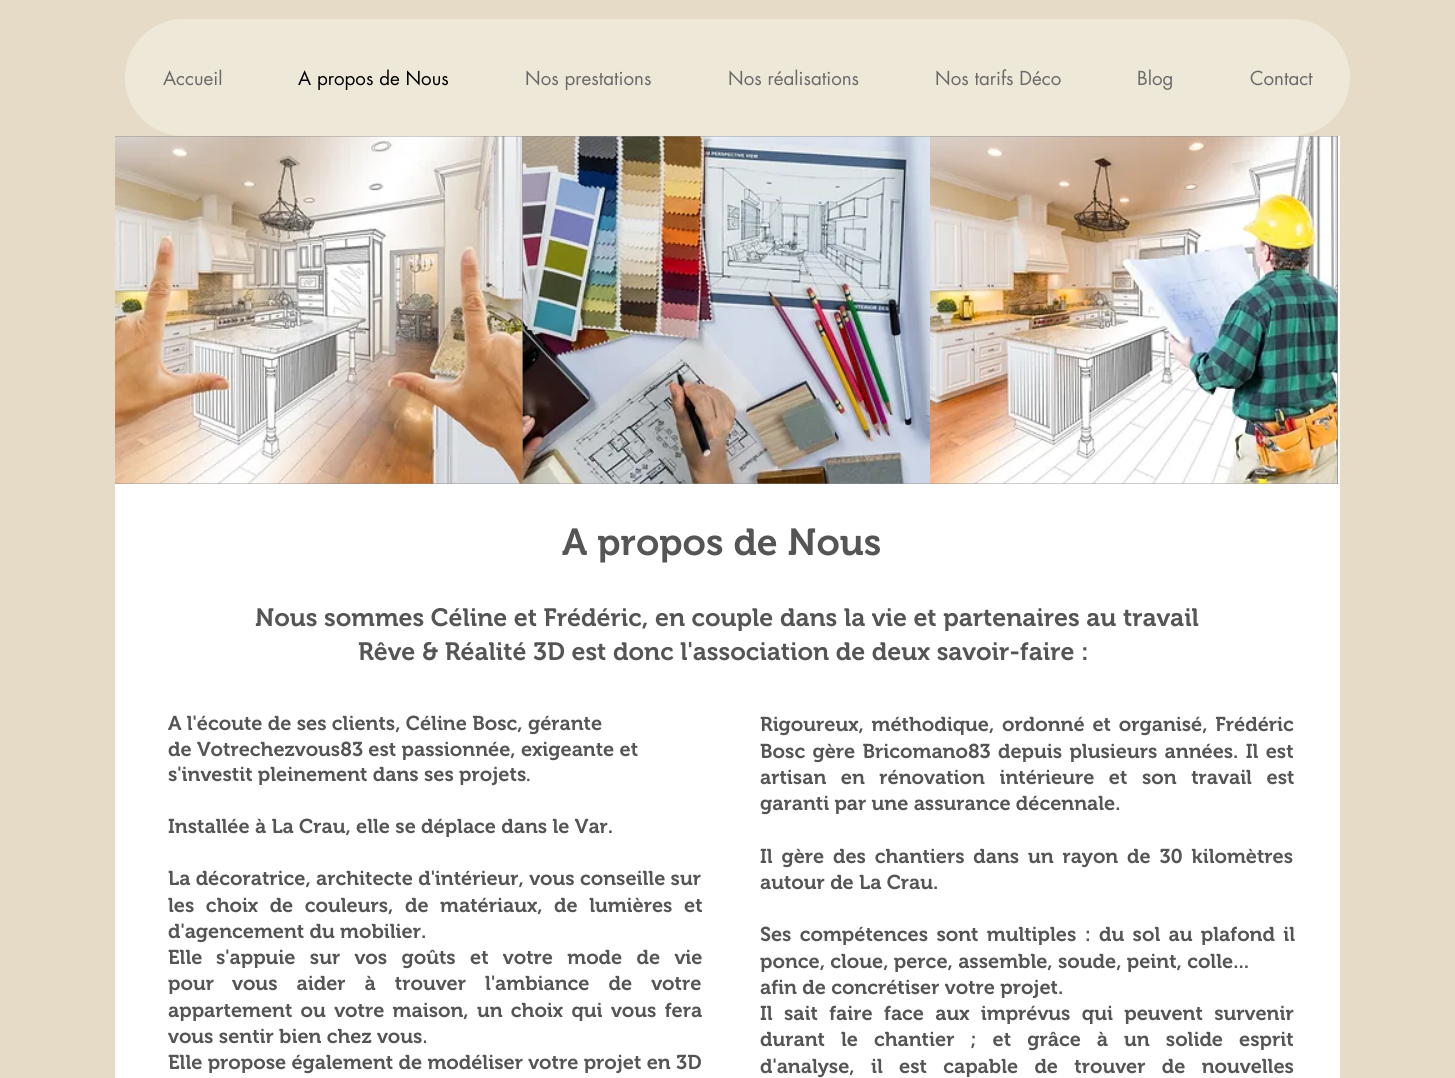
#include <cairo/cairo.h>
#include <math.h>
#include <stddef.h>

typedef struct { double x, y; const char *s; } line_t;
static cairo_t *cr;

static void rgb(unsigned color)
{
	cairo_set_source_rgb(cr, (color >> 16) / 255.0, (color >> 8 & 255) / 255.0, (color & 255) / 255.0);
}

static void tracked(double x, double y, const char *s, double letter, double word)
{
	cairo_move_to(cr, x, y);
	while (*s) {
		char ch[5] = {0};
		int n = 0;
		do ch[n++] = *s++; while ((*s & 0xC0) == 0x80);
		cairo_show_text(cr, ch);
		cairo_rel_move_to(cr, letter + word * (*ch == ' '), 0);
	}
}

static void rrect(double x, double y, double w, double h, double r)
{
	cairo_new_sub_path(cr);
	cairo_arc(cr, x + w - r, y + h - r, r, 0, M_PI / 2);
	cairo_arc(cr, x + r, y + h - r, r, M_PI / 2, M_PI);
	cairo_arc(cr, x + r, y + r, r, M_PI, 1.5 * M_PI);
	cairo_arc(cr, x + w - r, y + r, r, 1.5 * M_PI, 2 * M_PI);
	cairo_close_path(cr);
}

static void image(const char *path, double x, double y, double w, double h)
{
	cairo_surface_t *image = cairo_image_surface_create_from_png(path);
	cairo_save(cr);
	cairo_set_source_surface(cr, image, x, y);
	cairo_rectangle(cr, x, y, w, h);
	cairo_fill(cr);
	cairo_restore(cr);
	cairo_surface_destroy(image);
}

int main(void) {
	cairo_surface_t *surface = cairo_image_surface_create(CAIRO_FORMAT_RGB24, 1455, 1078);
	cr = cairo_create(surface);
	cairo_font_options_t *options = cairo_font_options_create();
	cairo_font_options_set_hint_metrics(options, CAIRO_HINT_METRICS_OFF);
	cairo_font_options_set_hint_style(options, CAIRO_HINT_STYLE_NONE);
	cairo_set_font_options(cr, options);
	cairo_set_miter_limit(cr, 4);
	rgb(0xe6dbc7);
	cairo_paint(cr);
	rgb(0xeee8d8);
	rrect(125, 19, 1225, 117, 58.5);
	cairo_fill(cr);
	rgb(0xffffff);
	cairo_rectangle(cr, 115, 136, 1225, 942);
	cairo_fill(cr);
	rgb(0x8b8b8b);
	cairo_rectangle(cr, 115, 136, 1223, 348);
	cairo_fill(cr);
	image("img/1.png", 115, 136, 408, 348);
	image("img/2.png", 522, 136, 408, 348);
	image("img/3.png", 930, 136, 408, 348);
	cairo_select_font_face(cr, "futura", CAIRO_FONT_SLANT_NORMAL, CAIRO_FONT_WEIGHT_NORMAL);
	cairo_set_font_size(cr, 18.75);
	rgb(0x696969);
	cairo_move_to(cr, 163, 85);
	cairo_show_text(cr, "Accueil");
	rgb(0x000000);
	cairo_move_to(cr, 298, 85);
	cairo_show_text(cr, "A propos de Nous");
	rgb(0x696969);
	{
		static const line_t items[] = {
			{525, 85, "Nos prestations"},
			{728, 85, "Nos réalisations"},
			{935, 85, "Nos tarifs Déco"},
			{1137, 85, "Blog"},
			{1250, 85, "Contact"},
		};
		for (size_t i = 0; i < sizeof items / sizeof *items; i++) {
			cairo_move_to(cr, items[i].x, items[i].y);
			cairo_show_text(cr, items[i].s);
		}
	}
	cairo_select_font_face(cr, "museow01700 SemiBold", CAIRO_FONT_SLANT_NORMAL, CAIRO_FONT_WEIGHT_NORMAL);
	cairo_set_font_size(cr, 37.5);
	rgb(0x555555);
	cairo_move_to(cr, 562, 555);
	cairo_show_text(cr, "A propos de Nous");
	cairo_set_font_size(cr, 25);
	cairo_move_to(cr, 255, 626);
	cairo_show_text(cr, "Nous sommes Céline et Frédéric, en couple dans la vie et partenaires au travail");
	cairo_move_to(cr, 358, 660);
	cairo_show_text(cr, "Rêve & Réalité 3D est donc l'association de deux savoir-faire :");
	cairo_set_font_size(cr, 20);
	{
		static const line_t items[] = {
			{168, 730, "A l'écoute de ses clients, Céline Bosc, gérante"},
			{168, 756, "de Votrechezvous83 est passionnée, exigeante et"},
			{168, 781, "s'investit pleinement dans ses projets"},
		};
		for (size_t i = 0; i < sizeof items / sizeof *items; i++) {
			cairo_move_to(cr, items[i].x, items[i].y);
			cairo_show_text(cr, items[i].s);
		}
	}
	cairo_select_font_face(cr, "Enriqueta", CAIRO_FONT_SLANT_NORMAL, CAIRO_FONT_WEIGHT_NORMAL);
	cairo_move_to(cr, 526, 781);
	cairo_show_text(cr, ".");
	cairo_select_font_face(cr, "museow01700 SemiBold", CAIRO_FONT_SLANT_NORMAL, CAIRO_FONT_WEIGHT_NORMAL);
	cairo_move_to(cr, 168, 833);
	cairo_show_text(cr, "Installée à La Crau, elle se déplace dans le Var.");
	cairo_move_to(cr, 168, 885);
	cairo_show_text(cr, "La décoratrice, architecte d'intérieur, vous conseille sur");
	tracked(168, 912, "les choix de couleurs, de matériaux, de lumières et", 0, 6.25);
	cairo_move_to(cr, 168, 938);
	cairo_show_text(cr, "d'agencement du mobilier.");
	cairo_move_to(cr, 168, 964);
	cairo_show_text(cr, "Elle");
	tracked(216, 964, "s'appuie sur vos goûts et votre mode de vie", 0, 9);
	cairo_move_to(cr, 168, 990);
	cairo_show_text(cr, "pour");
	tracked(232, 990, "vous aider à trouver l'ambiance de votre", 0, 13.75);
	tracked(168, 1017, "appartement ou votre maison, un choix qui vous fera", 0, 3);
	cairo_move_to(cr, 168, 1043);
	cairo_show_text(cr, "vous sentir bien chez vous.");
	cairo_move_to(cr, 168, 1069);
	cairo_show_text(cr, "Elle propose également de modéliser votre projet en 3D");
	tracked(760, 731, "Rigoureux, méthodique, ordonné et organisé, Frédéric", 0, 2.5);
	tracked(760, 758, "Bosc gère Bricomano83 depuis plusieurs années. Il est", 0, 2);
	tracked(760, 784, "artisan en rénovation intérieure et son travail est", 0, 9.25);
	cairo_move_to(cr, 760, 810);
	cairo_show_text(cr, "garanti par une assurance décennale.");
	tracked(760, 863, "Il gère des chantiers dans un rayon de 30 kilomètres", 0, 3.5);
	cairo_move_to(cr, 760, 889);
	cairo_show_text(cr, "autour de La Crau.");
	tracked(760, 941, "Ses compétences sont multiples : du sol au plafond il", 0, 3);
	cairo_move_to(cr, 760, 968);
	cairo_show_text(cr, "ponce, cloue, perce, assemble, soude, peint, colle...");
	cairo_move_to(cr, 760, 994);
	cairo_show_text(cr, "afin de concrétiser votre projet.");
	tracked(760, 1020, "Il sait faire face aux imprévus qui peuvent survenir", 0, 6);
	tracked(760, 1046, "durant le chantier ; et grâce à un solide esprit", 0, 10.75);
	tracked(760, 1073, "d'analyse, il est capable de trouver de nouvelles", 0, 11);
	cairo_surface_write_to_png(surface, "page.png");
	cairo_font_options_destroy(options);
	cairo_destroy(cr);
	cairo_surface_destroy(surface);
	return 0;
}
